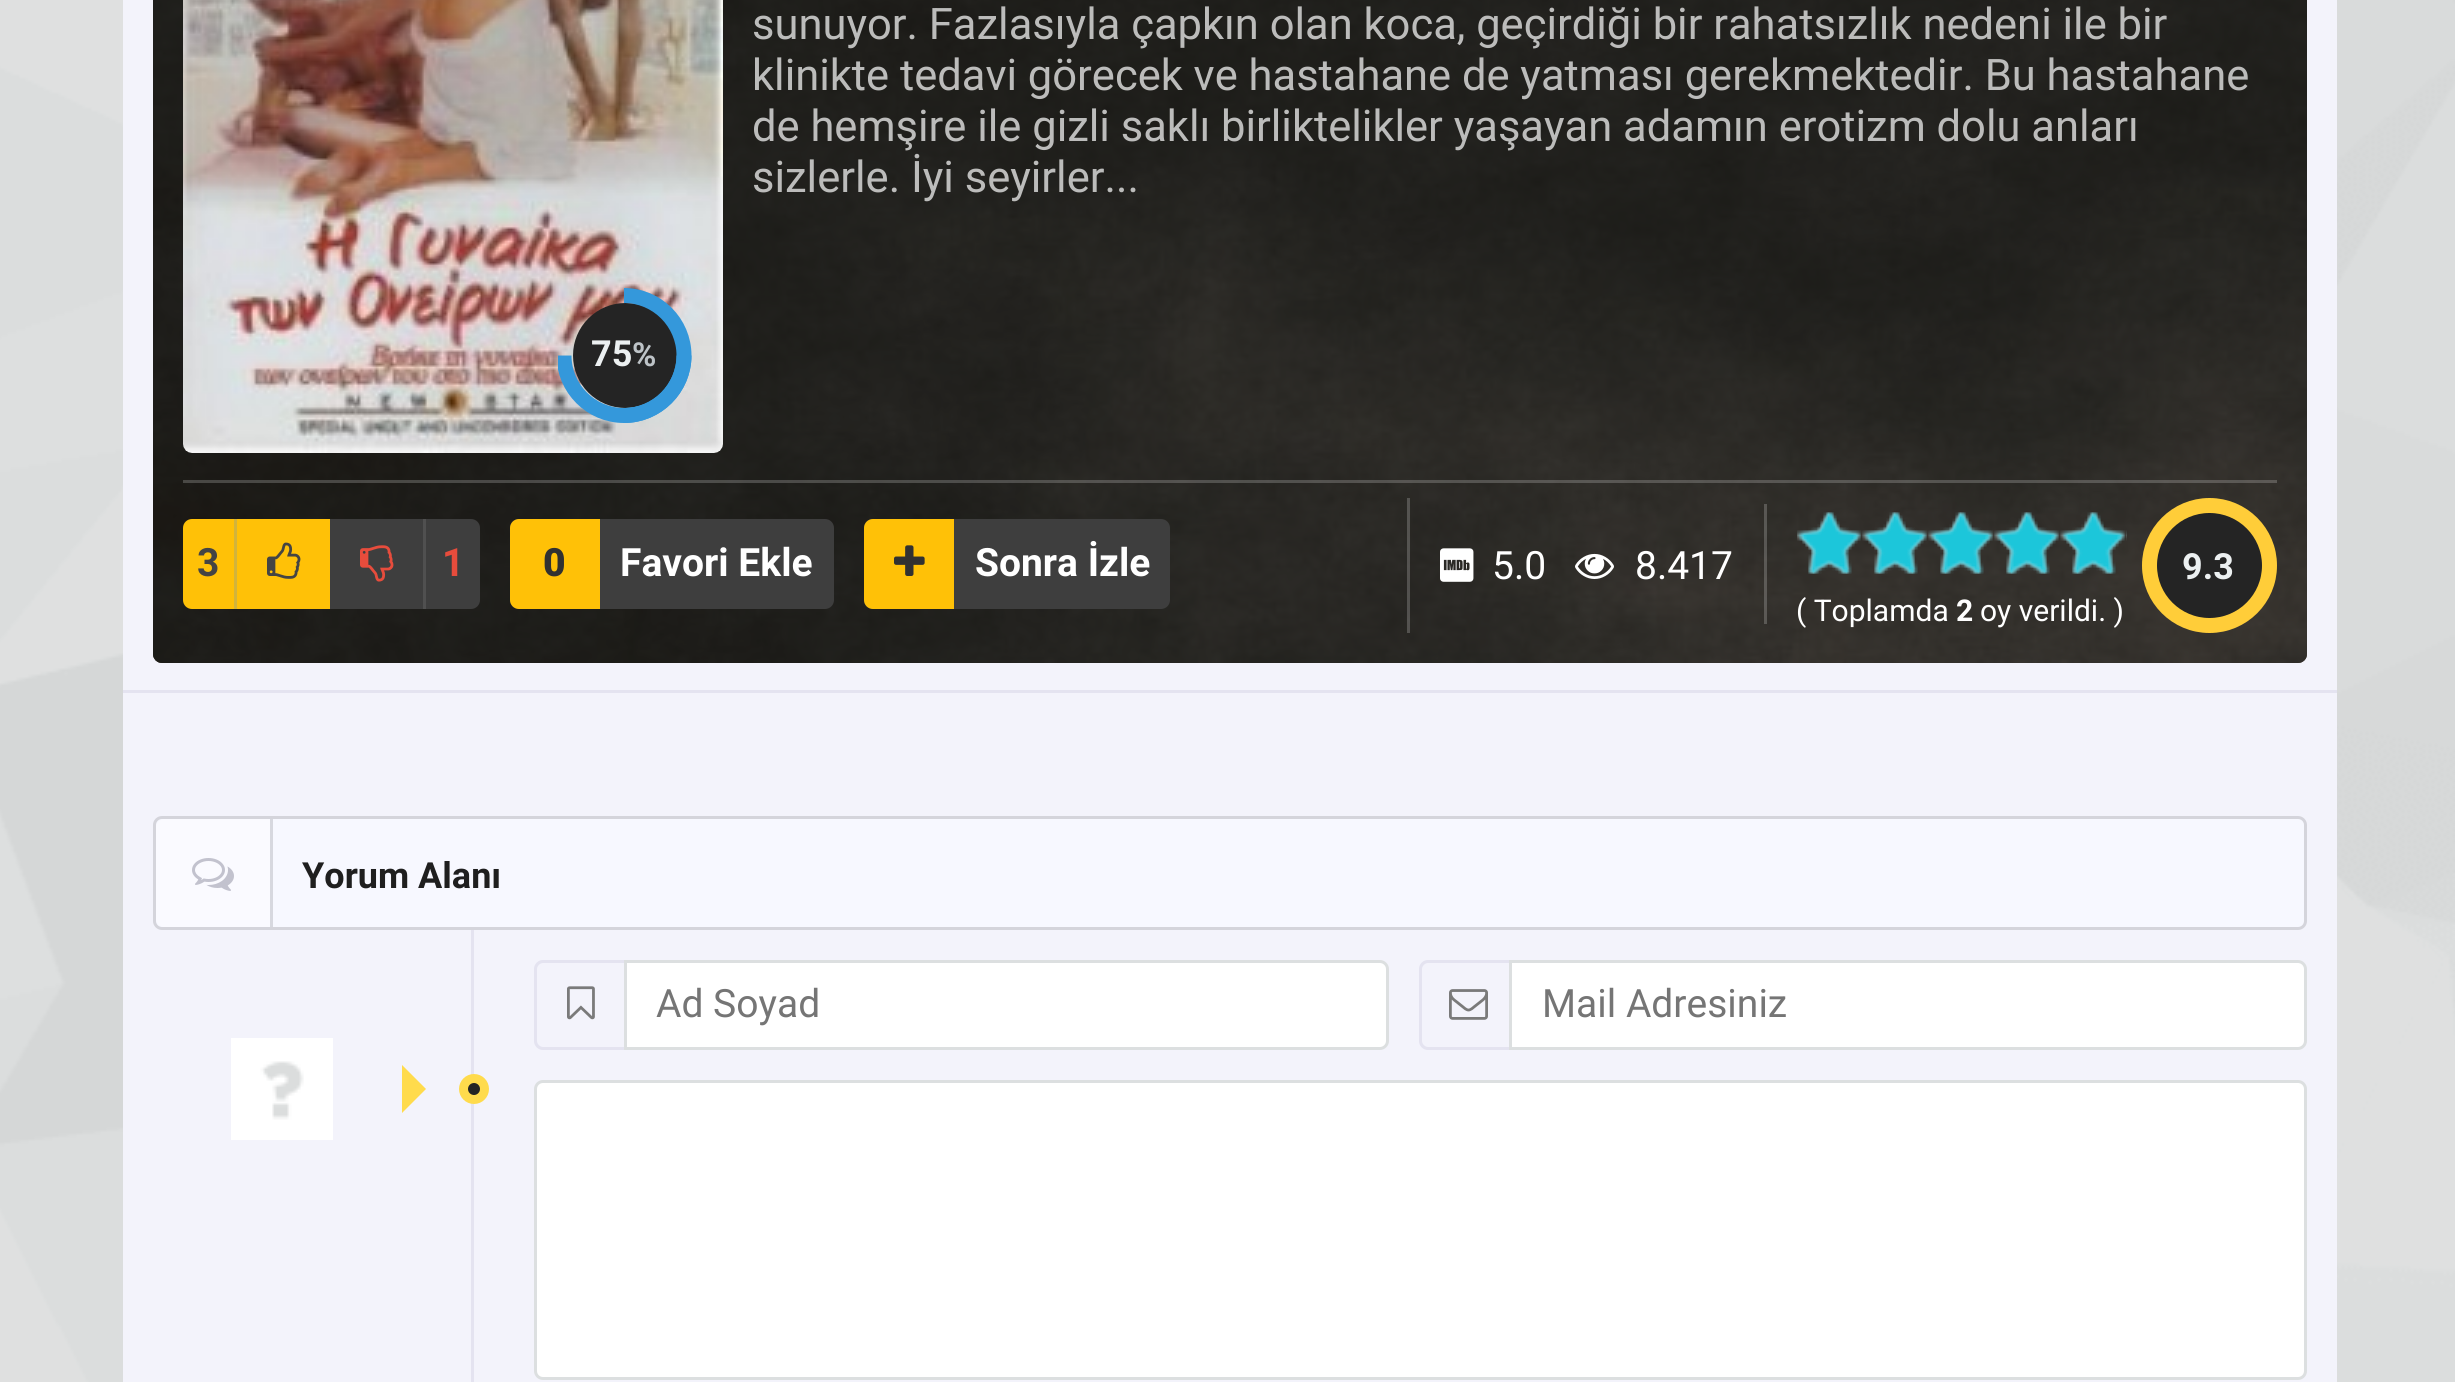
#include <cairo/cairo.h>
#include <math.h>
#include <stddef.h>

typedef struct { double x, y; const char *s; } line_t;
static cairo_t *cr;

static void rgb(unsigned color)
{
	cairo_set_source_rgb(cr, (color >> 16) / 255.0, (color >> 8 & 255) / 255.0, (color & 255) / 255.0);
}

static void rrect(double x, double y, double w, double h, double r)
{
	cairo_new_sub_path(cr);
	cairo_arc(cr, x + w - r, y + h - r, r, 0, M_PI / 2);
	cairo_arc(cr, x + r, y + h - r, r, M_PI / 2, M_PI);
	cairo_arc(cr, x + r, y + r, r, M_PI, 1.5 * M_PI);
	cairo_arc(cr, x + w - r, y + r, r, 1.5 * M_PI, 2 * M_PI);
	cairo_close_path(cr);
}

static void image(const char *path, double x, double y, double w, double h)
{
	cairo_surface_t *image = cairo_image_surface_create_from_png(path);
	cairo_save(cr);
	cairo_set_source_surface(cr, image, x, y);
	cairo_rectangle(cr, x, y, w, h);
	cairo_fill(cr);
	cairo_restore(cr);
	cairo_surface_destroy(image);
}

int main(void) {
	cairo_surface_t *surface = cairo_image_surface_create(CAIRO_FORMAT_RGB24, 2455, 1382);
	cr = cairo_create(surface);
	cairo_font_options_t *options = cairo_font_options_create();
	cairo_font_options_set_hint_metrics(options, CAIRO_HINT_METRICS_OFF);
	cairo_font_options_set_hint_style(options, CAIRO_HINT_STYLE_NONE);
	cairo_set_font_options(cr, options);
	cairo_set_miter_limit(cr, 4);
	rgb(0xf2f2f2);
	cairo_paint(cr);
	image("img/1.png", 0, 0, 2455, 1382);
	rgb(0xf3f3fb);
	cairo_rectangle(cr, 123, 0, 2214, 1382);
	cairo_fill(cr);
	rgb(0x201f1c);
	rrect(153, -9, 2154, 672, 9);
	cairo_fill(cr);
	image("img/2.png", 153, 0, 2154, 663);
	cairo_set_source_rgba(cr, 0.937, 0.604, 0.306, 0.3);
	rrect(153, -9, 2154, 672, 9);
	cairo_fill(cr);
	cairo_set_source_rgba(cr, 0, 0, 0, 0.7);
	rrect(153, -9, 2154, 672, 9);
	cairo_fill(cr);
	image("img/3.png", 183, 0, 540, 453);
	cairo_set_source_rgba(cr, 1, 1, 1, 0.2);
	cairo_rectangle(cr, 183, 480, 2094, 3);
	cairo_fill(cr);
	rgb(0x242424);
	cairo_arc(cr, 625.5, 355.5, 52.5, 0, 2 * M_PI);
	cairo_fill(cr);
	rgb(0xffc107);
	cairo_new_path(cr);
	cairo_move_to(cr, 192, 519);
	cairo_line_to(cr, 330, 519);
	cairo_line_to(cr, 330, 609);
	cairo_line_to(cr, 192, 609);
	cairo_curve_to(cr, 187, 609, 183, 605, 183, 600);
	cairo_line_to(cr, 183, 528);
	cairo_curve_to(cr, 183, 523, 187, 519, 192, 519);
	cairo_close_path(cr);
	cairo_fill(cr);
	rgb(0xd2b43c);
	cairo_rectangle(cr, 234, 519, 3, 90);
	cairo_fill(cr);
	image("img/4.png", 267, 542, 34, 37);
	rgb(0x3e3e3e);
	cairo_new_path(cr);
	cairo_move_to(cr, 330, 519);
	cairo_line_to(cr, 471, 519);
	cairo_curve_to(cr, 476, 519, 480, 523, 480, 528);
	cairo_line_to(cr, 480, 600);
	cairo_curve_to(cr, 480, 605, 476, 609, 471, 609);
	cairo_line_to(cr, 330, 609);
	cairo_close_path(cr);
	cairo_fill(cr);
	image("img/5.png", 360, 545, 34, 37);
	rgb(0x505050);
	cairo_rectangle(cr, 423, 519, 3, 90);
	cairo_fill(cr);
	rgb(0x3e3e3e);
	rrect(510, 519, 324, 90, 9);
	cairo_fill(cr);
	rgb(0xffc107);
	cairo_new_path(cr);
	cairo_move_to(cr, 519, 519);
	cairo_line_to(cr, 600, 519);
	cairo_line_to(cr, 600, 609);
	cairo_line_to(cr, 519, 609);
	cairo_curve_to(cr, 514, 609, 510, 605, 510, 600);
	cairo_line_to(cr, 510, 528);
	cairo_curve_to(cr, 510, 523, 514, 519, 519, 519);
	cairo_close_path(cr);
	cairo_fill(cr);
	rgb(0x3e3e3e);
	rrect(864, 519, 306, 90, 9);
	cairo_fill(cr);
	rgb(0xffc107);
	cairo_new_path(cr);
	cairo_move_to(cr, 873, 519);
	cairo_line_to(cr, 954, 519);
	cairo_line_to(cr, 954, 609);
	cairo_line_to(cr, 873, 609);
	cairo_curve_to(cr, 868, 609, 864, 605, 864, 600);
	cairo_line_to(cr, 864, 528);
	cairo_curve_to(cr, 864, 523, 868, 519, 873, 519);
	cairo_close_path(cr);
	cairo_fill(cr);
	image("img/6.png", 894, 545, 31, 31);
	cairo_set_source_rgba(cr, 1, 1, 1, 0.2);
	cairo_rectangle(cr, 1407, 498, 3, 135);
	cairo_fill(cr);
	image("img/7.png", 1440, 548, 34, 34);
	image("img/8.png", 1575, 553, 39, 26);
	cairo_rectangle(cr, 1764, 504, 3, 120);
	cairo_fill(cr);
	image("img/9.png", 1797, 512, 330, 62);
	image("img/10.png", 1797, 512, 330, 62);
	rgb(0x242424);
	cairo_arc(cr, 2209.5, 565.5, 60, 0, 2 * M_PI);
	cairo_fill_preserve(cr);
	rgb(0xffcd39);
	cairo_set_line_width(cr, 15);
	cairo_stroke(cr);
	rgb(0xe4e3f0);
	cairo_rectangle(cr, 123, 690, 2214, 3);
	cairo_fill(cr);
	rgb(0xf7f8ff);
	rrect(154.5, 817.5, 2151, 111, 7.5);
	cairo_fill_preserve(cr);
	rgb(0xd4d4db);
	cairo_set_line_width(cr, 3);
	cairo_stroke(cr);
	rgb(0xfafaff);
	cairo_new_path(cr);
	cairo_move_to(cr, 165, 819);
	cairo_line_to(cr, 273, 819);
	cairo_line_to(cr, 273, 927);
	cairo_line_to(cr, 165, 927);
	cairo_curve_to(cr, 160, 927, 156, 923, 156, 918);
	cairo_line_to(cr, 156, 828);
	cairo_curve_to(cr, 156, 823, 160, 819, 165, 819);
	cairo_close_path(cr);
	cairo_fill(cr);
	rgb(0xd7d8df);
	cairo_rectangle(cr, 270, 819, 3, 108);
	cairo_fill(cr);
	image("img/11.png", 192, 858, 42, 33);
	rgb(0xe4e3f0);
	cairo_rectangle(cr, 471, 930, 3, 452);
	cairo_fill(cr);
	cairo_set_fill_rule(cr, CAIRO_FILL_RULE_EVEN_ODD);
	cairo_new_path(cr);
	cairo_move_to(cr, 543, 960);
	cairo_line_to(cr, 624, 960);
	cairo_line_to(cr, 624, 1050);
	cairo_line_to(cr, 543, 1050);
	cairo_curve_to(cr, 538, 1050, 534, 1046, 534, 1041);
	cairo_line_to(cr, 534, 969);
	cairo_curve_to(cr, 534, 964, 538, 960, 543, 960);
	cairo_close_path(cr);
	cairo_move_to(cr, 543, 963);
	cairo_line_to(cr, 624, 963);
	cairo_line_to(cr, 624, 1047);
	cairo_line_to(cr, 543, 1047);
	cairo_curve_to(cr, 540, 1047, 537, 1044, 537, 1041);
	cairo_line_to(cr, 537, 969);
	cairo_curve_to(cr, 537, 966, 540, 963, 543, 963);
	cairo_close_path(cr);
	cairo_fill(cr);
	image("img/12.png", 567, 986, 28, 34);
	rgb(0xffffff);
	cairo_new_path(cr);
	cairo_move_to(cr, 625.5, 961.5);
	cairo_line_to(cr, 1380, 961.5);
	cairo_curve_to(cr, 1384, 961.5, 1387.5, 965, 1387.5, 969);
	cairo_line_to(cr, 1387.5, 1041);
	cairo_curve_to(cr, 1387.5, 1045, 1384, 1048.5, 1380, 1048.5);
	cairo_line_to(cr, 625.5, 1048.5);
	cairo_close_path(cr);
	cairo_fill_preserve(cr);
	rgb(0xdcdfe0);
	cairo_stroke(cr);
	rgb(0xe4e3f0);
	cairo_new_path(cr);
	cairo_move_to(cr, 1428, 960);
	cairo_line_to(cr, 1509, 960);
	cairo_line_to(cr, 1509, 1050);
	cairo_line_to(cr, 1428, 1050);
	cairo_curve_to(cr, 1423, 1050, 1419, 1046, 1419, 1041);
	cairo_line_to(cr, 1419, 969);
	cairo_curve_to(cr, 1419, 964, 1423, 960, 1428, 960);
	cairo_close_path(cr);
	cairo_move_to(cr, 1428, 963);
	cairo_line_to(cr, 1509, 963);
	cairo_line_to(cr, 1509, 1047);
	cairo_line_to(cr, 1428, 1047);
	cairo_curve_to(cr, 1425, 1047, 1422, 1044, 1422, 1041);
	cairo_line_to(cr, 1422, 969);
	cairo_curve_to(cr, 1422, 966, 1425, 963, 1428, 963);
	cairo_close_path(cr);
	cairo_fill(cr);
	image("img/13.png", 1449, 989, 39, 31);
	rgb(0xffffff);
	cairo_new_path(cr);
	cairo_move_to(cr, 1510.5, 961.5);
	cairo_line_to(cr, 2298, 961.5);
	cairo_curve_to(cr, 2302, 961.5, 2305.5, 965, 2305.5, 969);
	cairo_line_to(cr, 2305.5, 1041);
	cairo_curve_to(cr, 2305.5, 1045, 2302, 1048.5, 2298, 1048.5);
	cairo_line_to(cr, 1510.5, 1048.5);
	cairo_close_path(cr);
	cairo_fill_preserve(cr);
	rgb(0xdcdfe0);
	cairo_stroke(cr);
	rgb(0xffffff);
	rrect(535.5, 1081.5, 1770, 297, 7.5);
	cairo_fill_preserve(cr);
	rgb(0xdcdfe0);
	cairo_stroke(cr);
	image("img/14.png", 231, 1038, 102, 102);
	rgb(0xffdb4c);
	cairo_set_fill_rule(cr, CAIRO_FILL_RULE_WINDING);
	cairo_new_path(cr);
	cairo_move_to(cr, 402, 1113);
	cairo_line_to(cr, 402, 1065);
	cairo_line_to(cr, 426, 1089);
	cairo_close_path(cr);
	cairo_fill(cr);
	rgb(0x242424);
	cairo_arc(cr, 474, 1089, 10.5, 0, 2 * M_PI);
	cairo_fill_preserve(cr);
	rgb(0xffdb4c);
	cairo_set_line_width(cr, 9);
	cairo_stroke(cr);
	cairo_select_font_face(cr, "Roboto", CAIRO_FONT_SLANT_NORMAL, CAIRO_FONT_WEIGHT_NORMAL);
	cairo_set_font_size(cr, 43.5);
	rgb(0xbcbcbb);
	{
		static const line_t items[] = {
			{752, 39, "sunuyor. Fazlasıyla çapkın olan koca, geçirdiği bir rahatsızlık nedeni ile bir"},
			{752, 90, "klinikte tedavi görecek ve hastahane de yatması gerekmektedir. Bu hastahane"},
			{752, 141, "de hemşire ile gizli saklı birliktelikler yaşayan adamın erotizm dolu anları"},
			{752, 192, "sizlerle. İyi seyirler..."},
		};
		for (size_t i = 0; i < sizeof items / sizeof *items; i++) {
			cairo_move_to(cr, items[i].x, items[i].y);
			cairo_show_text(cr, items[i].s);
		}
	}
	cairo_select_font_face(cr, "Roboto", CAIRO_FONT_SLANT_NORMAL, CAIRO_FONT_WEIGHT_BOLD);
	cairo_set_font_size(cr, 36);
	rgb(0xecf0f1);
	cairo_move_to(cr, 591, 366);
	cairo_show_text(cr, "75");
	cairo_set_font_size(cr, 33);
	rgb(0xbdc3c7);
	cairo_move_to(cr, 632, 366);
	cairo_show_text(cr, "%");
	cairo_save(cr);
	cairo_rectangle(cr, 624, 288, 69, 135);
	cairo_clip(cr);
	cairo_new_path(cr);
	cairo_move_to(cr, 624, 415.5);
	cairo_curve_to(cr, 591, 415.5, 564, 388.5, 564, 355.5);
	cairo_curve_to(cr, 564, 322.5, 591, 295.5, 624, 295.5);
	cairo_curve_to(cr, 657, 295.5, 684, 322.5, 684, 355.5);
	cairo_curve_to(cr, 684, 388.5, 657, 415.5, 624, 415.5);
	cairo_close_path(cr);
	rgb(0x3498db);
	cairo_set_line_width(cr, 15);
	cairo_stroke(cr);
	cairo_restore(cr);
	cairo_save(cr);
	cairo_rectangle(cr, 558, 288, 135, 135);
	cairo_clip(cr);
	cairo_new_path(cr);
	cairo_move_to(cr, 556.5, 423);
	cairo_line_to(cr, 556.5, 355.5);
	cairo_line_to(cr, 691.5, 355.5);
	cairo_line_to(cr, 691.5, 423);
	cairo_close_path(cr);
	cairo_clip(cr);
	cairo_new_path(cr);
	cairo_move_to(cr, 564, 355.5);
	cairo_curve_to(cr, 564, 322.5, 591, 295.5, 624, 295.5);
	cairo_curve_to(cr, 657, 295.5, 684, 322.5, 684, 355.5);
	cairo_curve_to(cr, 684, 388.5, 657, 415.5, 624, 415.5);
	cairo_curve_to(cr, 591, 415.5, 564, 388.5, 564, 355.5);
	cairo_close_path(cr);
	rgb(0x3498db);
	cairo_set_line_width(cr, 15);
	cairo_stroke(cr);
	cairo_restore(cr);
	cairo_set_font_size(cr, 39);
	rgb(0x444444);
	cairo_move_to(cr, 197, 576);
	cairo_show_text(cr, "3");
	rgb(0xe74c3c);
	cairo_move_to(cr, 442, 576);
	cairo_show_text(cr, "1");
	cairo_select_font_face(cr, "Roboto Black", CAIRO_FONT_SLANT_NORMAL, CAIRO_FONT_WEIGHT_NORMAL);
	rgb(0x313131);
	cairo_move_to(cr, 543, 576);
	cairo_show_text(cr, "0");
	cairo_select_font_face(cr, "Roboto", CAIRO_FONT_SLANT_NORMAL, CAIRO_FONT_WEIGHT_BOLD);
	rgb(0xffffff);
	cairo_move_to(cr, 620, 576);
	cairo_show_text(cr, "Favori Ekle");
	cairo_move_to(cr, 975, 576);
	cairo_show_text(cr, "Sonra İzle");
	cairo_select_font_face(cr, "Roboto", CAIRO_FONT_SLANT_NORMAL, CAIRO_FONT_WEIGHT_NORMAL);
	cairo_move_to(cr, 1492, 579);
	cairo_show_text(cr, "5.0");
	cairo_move_to(cr, 1635, 579);
	cairo_show_text(cr, "8.417");
	cairo_select_font_face(cr, "Roboto", CAIRO_FONT_SLANT_NORMAL, CAIRO_FONT_WEIGHT_BOLD);
	cairo_set_font_size(cr, 36);
	rgb(0xecf0f1);
	cairo_move_to(cr, 2182, 579);
	cairo_show_text(cr, "9.3");
	cairo_select_font_face(cr, "Roboto", CAIRO_FONT_SLANT_NORMAL, CAIRO_FONT_WEIGHT_NORMAL);
	cairo_set_font_size(cr, 30);
	rgb(0xffffff);
	cairo_move_to(cr, 1796, 621);
	cairo_show_text(cr, "( Toplamda");
	cairo_select_font_face(cr, "Roboto", CAIRO_FONT_SLANT_NORMAL, CAIRO_FONT_WEIGHT_BOLD);
	cairo_move_to(cr, 1956, 621);
	cairo_show_text(cr, "2");
	cairo_select_font_face(cr, "Roboto", CAIRO_FONT_SLANT_NORMAL, CAIRO_FONT_WEIGHT_NORMAL);
	cairo_move_to(cr, 1980, 621);
	cairo_show_text(cr, "oy verildi. )");
	cairo_select_font_face(cr, "Roboto", CAIRO_FONT_SLANT_NORMAL, CAIRO_FONT_WEIGHT_BOLD);
	cairo_set_font_size(cr, 36);
	rgb(0x1f1f1f);
	cairo_move_to(cr, 302, 888);
	cairo_show_text(cr, "Yorum Alanı");
	cairo_select_font_face(cr, "Roboto", CAIRO_FONT_SLANT_NORMAL, CAIRO_FONT_WEIGHT_NORMAL);
	cairo_set_font_size(cr, 39);
	rgb(0x757575);
	cairo_move_to(cr, 656, 1017);
	cairo_show_text(cr, "Ad Soyad");
	cairo_move_to(cr, 1542, 1017);
	cairo_show_text(cr, "Mail Adresiniz");
	cairo_surface_write_to_png(surface, "page.png");
	cairo_font_options_destroy(options);
	cairo_destroy(cr);
	cairo_surface_destroy(surface);
	return 0;
}
